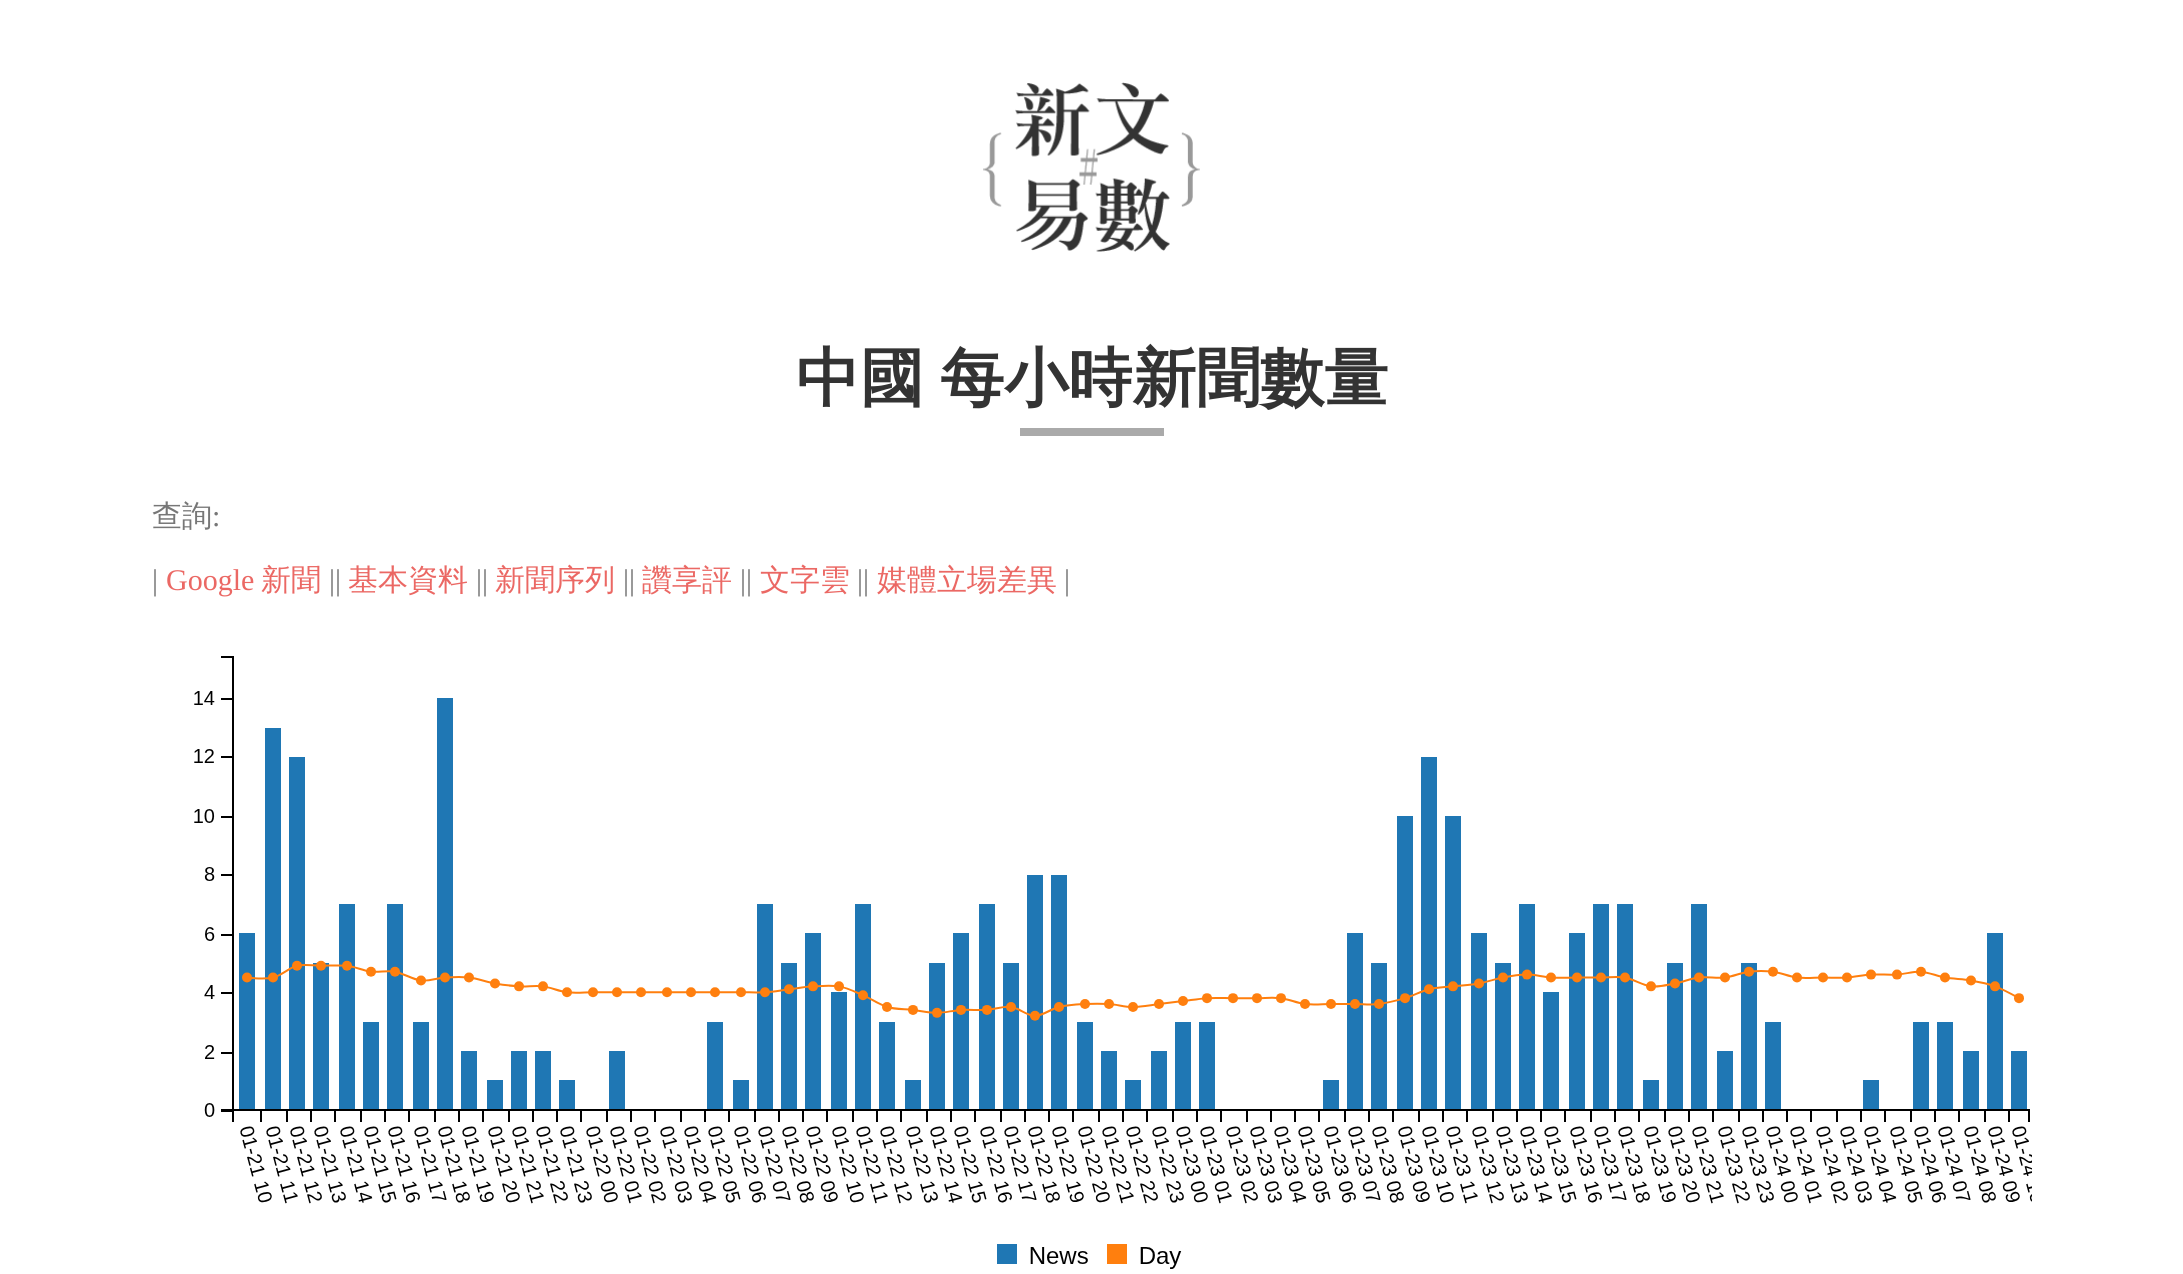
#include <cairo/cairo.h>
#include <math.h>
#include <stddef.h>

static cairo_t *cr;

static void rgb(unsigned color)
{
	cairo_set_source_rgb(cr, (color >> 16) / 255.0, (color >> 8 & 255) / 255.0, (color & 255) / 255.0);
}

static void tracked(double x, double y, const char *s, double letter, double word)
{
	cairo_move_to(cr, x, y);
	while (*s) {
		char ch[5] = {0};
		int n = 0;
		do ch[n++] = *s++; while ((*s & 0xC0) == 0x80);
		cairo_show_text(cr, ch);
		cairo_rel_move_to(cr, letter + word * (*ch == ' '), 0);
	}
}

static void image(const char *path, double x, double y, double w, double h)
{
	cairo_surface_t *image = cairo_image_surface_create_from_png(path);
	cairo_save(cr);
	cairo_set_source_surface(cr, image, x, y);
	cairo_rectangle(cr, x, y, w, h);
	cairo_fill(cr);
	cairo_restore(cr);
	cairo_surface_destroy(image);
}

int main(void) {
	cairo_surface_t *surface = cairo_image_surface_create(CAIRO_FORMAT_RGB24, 2183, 1274);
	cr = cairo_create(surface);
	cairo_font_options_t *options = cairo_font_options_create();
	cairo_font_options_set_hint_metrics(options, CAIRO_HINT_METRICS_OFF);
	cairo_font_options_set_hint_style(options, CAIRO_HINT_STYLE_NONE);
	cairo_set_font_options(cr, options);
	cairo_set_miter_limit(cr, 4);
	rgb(0xffffff);
	cairo_paint(cr);
	image("img/1.png", 983, 82, 217, 170);
	rgb(0xaaaaaa);
	cairo_rectangle(cr, 1020, 428, 144, 8);
	cairo_fill(cr);
	image("img/2.png", 194, 656, 1838, 613);
	cairo_select_font_face(cr, "WenQuanYi Zen Hei", CAIRO_FONT_SLANT_NORMAL, CAIRO_FONT_WEIGHT_BOLD);
	cairo_set_font_size(cr, 64);
	rgb(0x333333);
	tracked(796, 400, "中國 每小時新聞數量", 0, -3);
	cairo_select_font_face(cr, "WenQuanYi Zen Hei Medium", CAIRO_FONT_SLANT_NORMAL, CAIRO_FONT_WEIGHT_NORMAL);
	cairo_set_font_size(cr, 30);
	rgb(0x777777);
	cairo_move_to(cr, 152, 526);
	cairo_show_text(cr, "查詢");
	cairo_select_font_face(cr, "Liberation Serif", CAIRO_FONT_SLANT_NORMAL, CAIRO_FONT_WEIGHT_NORMAL);
	cairo_move_to(cr, 212, 526);
	cairo_show_text(cr, ":");
	cairo_move_to(cr, 152, 590);
	cairo_show_text(cr, "|");
	rgb(0xeb6864);
	cairo_move_to(cr, 166, 590);
	cairo_show_text(cr, "Google");
	cairo_select_font_face(cr, "WenQuanYi Zen Hei Medium", CAIRO_FONT_SLANT_NORMAL, CAIRO_FONT_WEIGHT_NORMAL);
	cairo_move_to(cr, 261, 590);
	cairo_show_text(cr, "新聞");
	cairo_select_font_face(cr, "Liberation Serif", CAIRO_FONT_SLANT_NORMAL, CAIRO_FONT_WEIGHT_NORMAL);
	rgb(0x777777);
	cairo_move_to(cr, 329, 590);
	cairo_show_text(cr, "||");
	cairo_select_font_face(cr, "WenQuanYi Zen Hei Medium", CAIRO_FONT_SLANT_NORMAL, CAIRO_FONT_WEIGHT_NORMAL);
	rgb(0xeb6864);
	cairo_move_to(cr, 348, 590);
	cairo_show_text(cr, "基本資料");
	cairo_select_font_face(cr, "Liberation Serif", CAIRO_FONT_SLANT_NORMAL, CAIRO_FONT_WEIGHT_NORMAL);
	rgb(0x777777);
	cairo_move_to(cr, 476, 590);
	cairo_show_text(cr, "||");
	cairo_select_font_face(cr, "WenQuanYi Zen Hei Medium", CAIRO_FONT_SLANT_NORMAL, CAIRO_FONT_WEIGHT_NORMAL);
	rgb(0xeb6864);
	cairo_move_to(cr, 495, 590);
	cairo_show_text(cr, "新聞序列");
	cairo_select_font_face(cr, "Liberation Serif", CAIRO_FONT_SLANT_NORMAL, CAIRO_FONT_WEIGHT_NORMAL);
	rgb(0x777777);
	cairo_move_to(cr, 623, 590);
	cairo_show_text(cr, "||");
	cairo_select_font_face(cr, "WenQuanYi Zen Hei Medium", CAIRO_FONT_SLANT_NORMAL, CAIRO_FONT_WEIGHT_NORMAL);
	rgb(0xeb6864);
	cairo_move_to(cr, 642, 590);
	cairo_show_text(cr, "讚享評");
	cairo_select_font_face(cr, "Liberation Serif", CAIRO_FONT_SLANT_NORMAL, CAIRO_FONT_WEIGHT_NORMAL);
	rgb(0x777777);
	cairo_move_to(cr, 740, 590);
	cairo_show_text(cr, "||");
	cairo_select_font_face(cr, "WenQuanYi Zen Hei Medium", CAIRO_FONT_SLANT_NORMAL, CAIRO_FONT_WEIGHT_NORMAL);
	rgb(0xeb6864);
	cairo_move_to(cr, 760, 590);
	cairo_show_text(cr, "文字雲");
	cairo_select_font_face(cr, "Liberation Serif", CAIRO_FONT_SLANT_NORMAL, CAIRO_FONT_WEIGHT_NORMAL);
	rgb(0x777777);
	cairo_move_to(cr, 857, 590);
	cairo_show_text(cr, "||");
	cairo_select_font_face(cr, "WenQuanYi Zen Hei Medium", CAIRO_FONT_SLANT_NORMAL, CAIRO_FONT_WEIGHT_NORMAL);
	rgb(0xeb6864);
	cairo_move_to(cr, 877, 590);
	cairo_show_text(cr, "媒體立場差異");
	cairo_select_font_face(cr, "Liberation Serif", CAIRO_FONT_SLANT_NORMAL, CAIRO_FONT_WEIGHT_NORMAL);
	rgb(0x777777);
	cairo_move_to(cr, 1064, 590);
	cairo_show_text(cr, "|");
	cairo_surface_write_to_png(surface, "page.png");
	cairo_font_options_destroy(options);
	cairo_destroy(cr);
	cairo_surface_destroy(surface);
	return 0;
}
